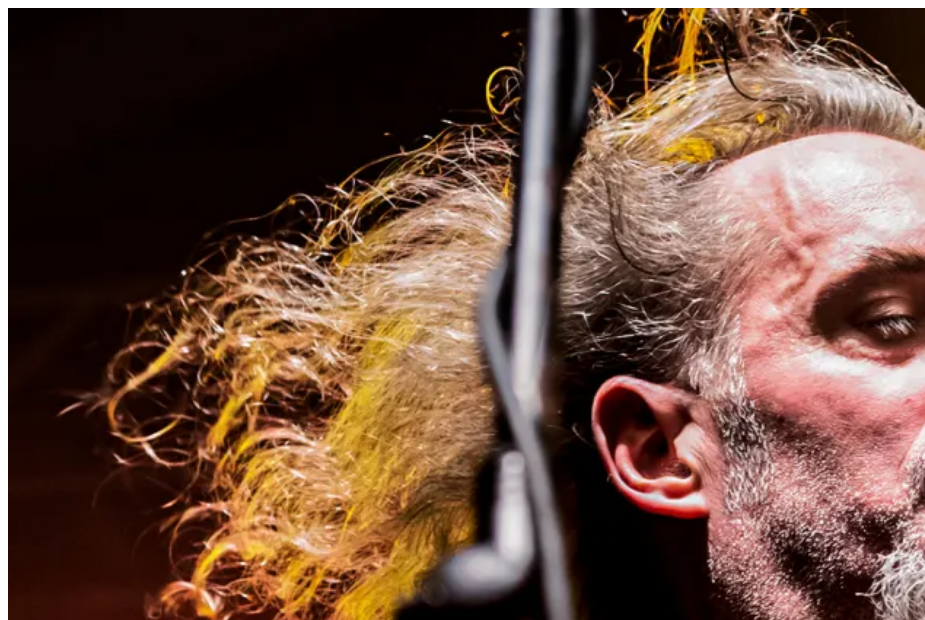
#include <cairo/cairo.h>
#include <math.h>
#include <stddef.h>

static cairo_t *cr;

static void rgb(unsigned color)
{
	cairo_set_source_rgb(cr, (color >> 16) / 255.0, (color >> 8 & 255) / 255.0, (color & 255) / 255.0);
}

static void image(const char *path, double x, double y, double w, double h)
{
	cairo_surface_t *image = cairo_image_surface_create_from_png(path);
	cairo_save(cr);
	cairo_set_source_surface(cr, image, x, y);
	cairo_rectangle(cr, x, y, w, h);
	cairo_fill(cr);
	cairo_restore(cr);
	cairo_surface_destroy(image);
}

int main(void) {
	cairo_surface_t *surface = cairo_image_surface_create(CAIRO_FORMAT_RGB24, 925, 620);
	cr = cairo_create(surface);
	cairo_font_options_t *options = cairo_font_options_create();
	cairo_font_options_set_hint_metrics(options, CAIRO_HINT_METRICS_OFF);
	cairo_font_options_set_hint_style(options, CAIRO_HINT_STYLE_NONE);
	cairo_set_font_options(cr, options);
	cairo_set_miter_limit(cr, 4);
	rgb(0xffffff);
	cairo_paint(cr);
	image("img/1.png", 8, 8, 917, 612);
	cairo_surface_write_to_png(surface, "page.png");
	cairo_font_options_destroy(options);
	cairo_destroy(cr);
	cairo_surface_destroy(surface);
	return 0;
}
